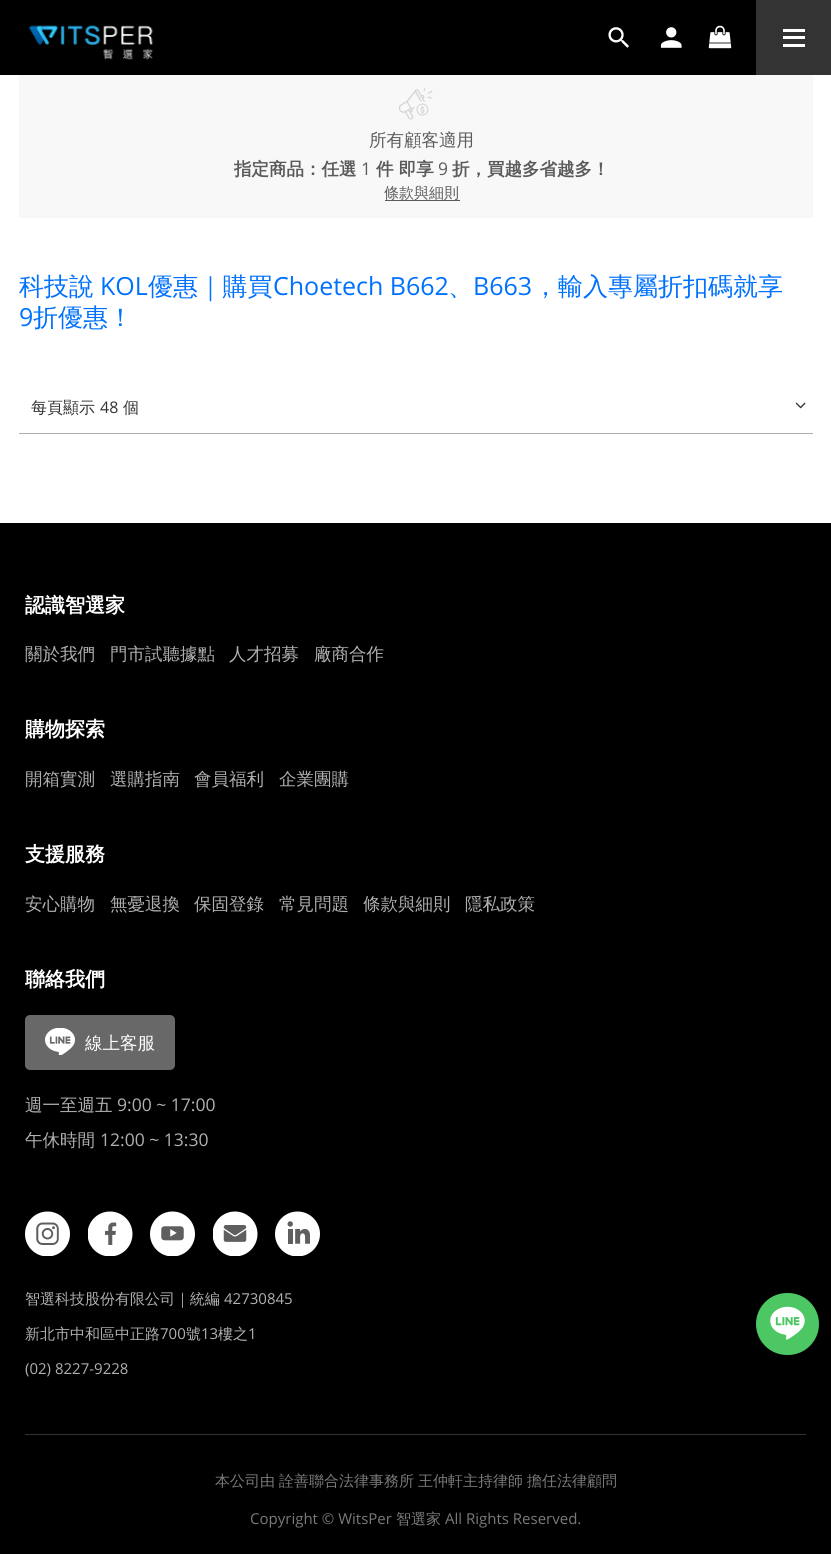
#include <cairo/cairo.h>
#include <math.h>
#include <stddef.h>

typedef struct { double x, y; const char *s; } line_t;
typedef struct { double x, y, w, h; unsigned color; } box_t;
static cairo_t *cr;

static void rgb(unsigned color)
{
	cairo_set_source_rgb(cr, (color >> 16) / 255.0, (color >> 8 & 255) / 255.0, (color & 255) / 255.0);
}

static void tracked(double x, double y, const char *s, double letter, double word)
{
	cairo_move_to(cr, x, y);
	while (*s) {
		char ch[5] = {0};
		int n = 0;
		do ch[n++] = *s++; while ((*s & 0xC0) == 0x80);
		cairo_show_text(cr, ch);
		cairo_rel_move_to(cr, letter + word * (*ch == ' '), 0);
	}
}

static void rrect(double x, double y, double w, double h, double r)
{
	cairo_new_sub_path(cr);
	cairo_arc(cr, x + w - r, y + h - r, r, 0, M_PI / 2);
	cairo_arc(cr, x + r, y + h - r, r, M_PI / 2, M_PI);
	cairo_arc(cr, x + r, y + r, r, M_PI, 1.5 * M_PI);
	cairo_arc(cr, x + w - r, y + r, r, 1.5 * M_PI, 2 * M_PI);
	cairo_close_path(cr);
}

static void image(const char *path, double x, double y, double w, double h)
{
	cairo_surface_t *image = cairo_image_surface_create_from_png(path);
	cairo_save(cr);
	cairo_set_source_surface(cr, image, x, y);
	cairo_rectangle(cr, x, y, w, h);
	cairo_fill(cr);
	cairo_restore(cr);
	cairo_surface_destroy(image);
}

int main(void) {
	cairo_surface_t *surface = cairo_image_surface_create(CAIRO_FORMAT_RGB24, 831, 1554);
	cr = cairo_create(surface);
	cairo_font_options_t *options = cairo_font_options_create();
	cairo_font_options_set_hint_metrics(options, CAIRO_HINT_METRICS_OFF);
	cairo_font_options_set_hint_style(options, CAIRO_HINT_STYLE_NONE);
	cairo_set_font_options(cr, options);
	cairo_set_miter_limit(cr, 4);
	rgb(0xffffff);
	cairo_paint(cr);
	rgb(0x000000);
	cairo_rectangle(cr, 0, 0, 756, 75);
	cairo_fill(cr);
	image("img/1.png", 29, 25, 124, 35);
	image("img/2.png", 608, 27, 21, 21);
	image("img/3.png", 660, 27, 22, 21);
	image("img/4.png", 708, 25, 24, 24);
	{
		static const box_t items[] = {
			{756, 0, 75, 75, 0x333333},
			{783, 36, 22, 3, 0xffffff},
			{783, 29, 22, 3, 0xffffff},
			{783, 44, 22, 3, 0xffffff},
			{19, 75, 794, 143, 0xf8f8f8},
		};
		for (size_t i = 0; i < sizeof items / sizeof *items; i++) {
			rgb(items[i].color);
			cairo_rectangle(cr, items[i].x, items[i].y, items[i].w, items[i].h);
			cairo_fill(cr);
		}
	}
	image("img/5.png", 399, 88, 34, 32);
	rgb(0x5b5b5b);
	cairo_rectangle(cr, 385, 200, 75, 1);
	cairo_fill(cr);
	rgb(0xadadad);
	cairo_rectangle(cr, 19, 433, 794, 1);
	cairo_fill(cr);
	image("img/6.png", 795, 402, 11, 7);
	rgb(0x000000);
	cairo_rectangle(cr, 0, 523, 831, 1031);
	cairo_fill(cr);
	rgb(0x686868);
	rrect(25, 1015, 150, 55, 5);
	cairo_fill(cr);
	image("img/7.png", 45, 1028, 30, 27);
	image("img/8.png", 25, 1211, 45, 45);
	image("img/9.png", 88, 1211, 45, 45);
	image("img/10.png", 150, 1211, 45, 45);
	image("img/11.png", 213, 1211, 45, 45);
	image("img/12.png", 275, 1211, 45, 45);
	rgb(0x333333);
	cairo_rectangle(cr, 25, 1434, 781, 1);
	cairo_fill(cr);
	rgb(0x4cc764);
	rrect(756, 1293, 63, 62, 31);
	cairo_fill(cr);
	image("img/13.png", 770, 1306, 35, 34);
	cairo_select_font_face(cr, "WenQuanYi Zen Hei Medium", CAIRO_FONT_SLANT_NORMAL, CAIRO_FONT_WEIGHT_NORMAL);
	cairo_set_font_size(cr, 17.5);
	rgb(0x5b5b5b);
	cairo_move_to(cr, 369, 146);
	cairo_show_text(cr, "所有顧客適用");
	cairo_select_font_face(cr, "WenQuanYi Zen Hei", CAIRO_FONT_SLANT_NORMAL, CAIRO_FONT_WEIGHT_BOLD);
	cairo_move_to(cr, 234, 175);
	cairo_show_text(cr, "指定商品：任選");
	cairo_select_font_face(cr, "Open Sans", CAIRO_FONT_SLANT_NORMAL, CAIRO_FONT_WEIGHT_NORMAL);
	cairo_move_to(cr, 361, 175);
	cairo_show_text(cr, "1");
	cairo_select_font_face(cr, "WenQuanYi Zen Hei", CAIRO_FONT_SLANT_NORMAL, CAIRO_FONT_WEIGHT_BOLD);
	cairo_move_to(cr, 376, 175);
	cairo_show_text(cr, "件 即享");
	cairo_select_font_face(cr, "Open Sans", CAIRO_FONT_SLANT_NORMAL, CAIRO_FONT_WEIGHT_NORMAL);
	cairo_move_to(cr, 438, 175);
	cairo_show_text(cr, "9");
	cairo_select_font_face(cr, "WenQuanYi Zen Hei", CAIRO_FONT_SLANT_NORMAL, CAIRO_FONT_WEIGHT_BOLD);
	cairo_move_to(cr, 452, 175);
	cairo_show_text(cr, "折，買越多省越多！");
	cairo_select_font_face(cr, "WenQuanYi Zen Hei Medium", CAIRO_FONT_SLANT_NORMAL, CAIRO_FONT_WEIGHT_NORMAL);
	cairo_set_font_size(cr, 15);
	cairo_move_to(cr, 384, 198);
	cairo_show_text(cr, "條款與細則");
	cairo_set_font_size(cr, 25);
	rgb(0x0071fe);
	cairo_move_to(cr, 19, 295);
	cairo_show_text(cr, "科技說");
	cairo_select_font_face(cr, "Open Sans", CAIRO_FONT_SLANT_NORMAL, CAIRO_FONT_WEIGHT_NORMAL);
	cairo_move_to(cr, 100, 295);
	cairo_show_text(cr, "KOL");
	cairo_select_font_face(cr, "WenQuanYi Zen Hei Medium", CAIRO_FONT_SLANT_NORMAL, CAIRO_FONT_WEIGHT_NORMAL);
	cairo_move_to(cr, 148, 295);
	cairo_show_text(cr, "優惠｜購買");
	cairo_select_font_face(cr, "Open Sans", CAIRO_FONT_SLANT_NORMAL, CAIRO_FONT_WEIGHT_NORMAL);
	cairo_move_to(cr, 273, 295);
	cairo_show_text(cr, "Choetech B662");
	cairo_select_font_face(cr, "WenQuanYi Zen Hei Medium", CAIRO_FONT_SLANT_NORMAL, CAIRO_FONT_WEIGHT_NORMAL);
	cairo_move_to(cr, 448, 295);
	cairo_show_text(cr, "、");
	cairo_select_font_face(cr, "Open Sans", CAIRO_FONT_SLANT_NORMAL, CAIRO_FONT_WEIGHT_NORMAL);
	cairo_move_to(cr, 473, 295);
	cairo_show_text(cr, "B663");
	cairo_select_font_face(cr, "WenQuanYi Zen Hei Medium", CAIRO_FONT_SLANT_NORMAL, CAIRO_FONT_WEIGHT_NORMAL);
	cairo_move_to(cr, 533, 295);
	cairo_show_text(cr, "，輸入專屬折扣碼就享");
	cairo_select_font_face(cr, "Open Sans", CAIRO_FONT_SLANT_NORMAL, CAIRO_FONT_WEIGHT_NORMAL);
	cairo_move_to(cr, 19, 326);
	cairo_show_text(cr, "9");
	cairo_select_font_face(cr, "WenQuanYi Zen Hei Medium", CAIRO_FONT_SLANT_NORMAL, CAIRO_FONT_WEIGHT_NORMAL);
	cairo_move_to(cr, 33, 326);
	cairo_show_text(cr, "折優惠！");
	cairo_set_font_size(cr, 16);
	rgb(0x333333);
	cairo_move_to(cr, 31, 413);
	cairo_show_text(cr, "每頁顯示");
	cairo_select_font_face(cr, "Open Sans", CAIRO_FONT_SLANT_NORMAL, CAIRO_FONT_WEIGHT_NORMAL);
	cairo_move_to(cr, 100, 413);
	cairo_show_text(cr, "48");
	cairo_select_font_face(cr, "WenQuanYi Zen Hei Medium", CAIRO_FONT_SLANT_NORMAL, CAIRO_FONT_WEIGHT_NORMAL);
	cairo_move_to(cr, 123, 413);
	cairo_show_text(cr, "個");
	cairo_select_font_face(cr, "WenQuanYi Zen Hei", CAIRO_FONT_SLANT_NORMAL, CAIRO_FONT_WEIGHT_BOLD);
	cairo_set_font_size(cr, 20);
	rgb(0xffffff);
	cairo_move_to(cr, 25, 612);
	cairo_show_text(cr, "認識智選家");
	cairo_select_font_face(cr, "WenQuanYi Zen Hei Medium", CAIRO_FONT_SLANT_NORMAL, CAIRO_FONT_WEIGHT_NORMAL);
	cairo_set_font_size(cr, 17.5);
	rgb(0xb0b0b0);
	{
		static const line_t items[] = {
			{25, 660, "關於我們"},
			{110, 660, "門市試聽據點"},
			{229, 660, "人才招募"},
			{314, 660, "廠商合作"},
		};
		for (size_t i = 0; i < sizeof items / sizeof *items; i++) {
			cairo_move_to(cr, items[i].x, items[i].y);
			cairo_show_text(cr, items[i].s);
		}
	}
	cairo_select_font_face(cr, "WenQuanYi Zen Hei", CAIRO_FONT_SLANT_NORMAL, CAIRO_FONT_WEIGHT_BOLD);
	cairo_set_font_size(cr, 20);
	rgb(0xffffff);
	cairo_move_to(cr, 25, 736);
	cairo_show_text(cr, "購物探索");
	cairo_select_font_face(cr, "WenQuanYi Zen Hei Medium", CAIRO_FONT_SLANT_NORMAL, CAIRO_FONT_WEIGHT_NORMAL);
	cairo_set_font_size(cr, 17.5);
	rgb(0xb0b0b0);
	{
		static const line_t items[] = {
			{25, 785, "開箱實測"},
			{110, 785, "選購指南"},
			{194, 785, "會員福利"},
			{279, 785, "企業團購"},
		};
		for (size_t i = 0; i < sizeof items / sizeof *items; i++) {
			cairo_move_to(cr, items[i].x, items[i].y);
			cairo_show_text(cr, items[i].s);
		}
	}
	cairo_select_font_face(cr, "WenQuanYi Zen Hei", CAIRO_FONT_SLANT_NORMAL, CAIRO_FONT_WEIGHT_BOLD);
	cairo_set_font_size(cr, 20);
	rgb(0xffffff);
	cairo_move_to(cr, 25, 861);
	cairo_show_text(cr, "支援服務");
	cairo_select_font_face(cr, "WenQuanYi Zen Hei Medium", CAIRO_FONT_SLANT_NORMAL, CAIRO_FONT_WEIGHT_NORMAL);
	cairo_set_font_size(cr, 17.5);
	rgb(0xb0b0b0);
	{
		static const line_t items[] = {
			{25, 910, "安心購物"},
			{110, 910, "無憂退換"},
			{194, 910, "保固登錄"},
			{279, 910, "常見問題"},
			{363, 910, "條款與細則"},
			{465, 910, "隱私政策"},
		};
		for (size_t i = 0; i < sizeof items / sizeof *items; i++) {
			cairo_move_to(cr, items[i].x, items[i].y);
			cairo_show_text(cr, items[i].s);
		}
	}
	cairo_select_font_face(cr, "WenQuanYi Zen Hei", CAIRO_FONT_SLANT_NORMAL, CAIRO_FONT_WEIGHT_BOLD);
	cairo_set_font_size(cr, 20);
	rgb(0xffffff);
	cairo_move_to(cr, 25, 986);
	cairo_show_text(cr, "聯絡我們");
	cairo_select_font_face(cr, "WenQuanYi Zen Hei Medium", CAIRO_FONT_SLANT_NORMAL, CAIRO_FONT_WEIGHT_NORMAL);
	cairo_set_font_size(cr, 17.5);
	cairo_move_to(cr, 85, 1049);
	cairo_show_text(cr, "線上客服");
	rgb(0xb0b0b0);
	cairo_move_to(cr, 25, 1111);
	cairo_show_text(cr, "週一至週五");
	cairo_select_font_face(cr, "Open Sans", CAIRO_FONT_SLANT_NORMAL, CAIRO_FONT_WEIGHT_NORMAL);
	cairo_move_to(cr, 117, 1111);
	cairo_show_text(cr, "9:00 ~ 17:00");
	cairo_select_font_face(cr, "WenQuanYi Zen Hei Medium", CAIRO_FONT_SLANT_NORMAL, CAIRO_FONT_WEIGHT_NORMAL);
	cairo_move_to(cr, 25, 1146);
	cairo_show_text(cr, "午休時間");
	cairo_select_font_face(cr, "Open Sans", CAIRO_FONT_SLANT_NORMAL, CAIRO_FONT_WEIGHT_NORMAL);
	cairo_move_to(cr, 100, 1146);
	cairo_show_text(cr, "12:00 ~ 13:30");
	cairo_select_font_face(cr, "WenQuanYi Zen Hei Medium", CAIRO_FONT_SLANT_NORMAL, CAIRO_FONT_WEIGHT_NORMAL);
	cairo_set_font_size(cr, 15);
	cairo_move_to(cr, 25, 1304);
	cairo_show_text(cr, "智選科技股份有限公司｜統編");
	cairo_select_font_face(cr, "Open Sans", CAIRO_FONT_SLANT_NORMAL, CAIRO_FONT_WEIGHT_NORMAL);
	cairo_move_to(cr, 224, 1304);
	cairo_show_text(cr, "42730845");
	cairo_select_font_face(cr, "WenQuanYi Zen Hei Medium", CAIRO_FONT_SLANT_NORMAL, CAIRO_FONT_WEIGHT_NORMAL);
	cairo_move_to(cr, 25, 1339);
	cairo_show_text(cr, "新北市中和區中正路");
	cairo_select_font_face(cr, "Open Sans", CAIRO_FONT_SLANT_NORMAL, CAIRO_FONT_WEIGHT_NORMAL);
	cairo_move_to(cr, 160, 1339);
	cairo_show_text(cr, "700");
	cairo_select_font_face(cr, "WenQuanYi Zen Hei Medium", CAIRO_FONT_SLANT_NORMAL, CAIRO_FONT_WEIGHT_NORMAL);
	cairo_move_to(cr, 186, 1339);
	cairo_show_text(cr, "號");
	cairo_select_font_face(cr, "Open Sans", CAIRO_FONT_SLANT_NORMAL, CAIRO_FONT_WEIGHT_NORMAL);
	cairo_move_to(cr, 201, 1339);
	cairo_show_text(cr, "13");
	cairo_select_font_face(cr, "WenQuanYi Zen Hei Medium", CAIRO_FONT_SLANT_NORMAL, CAIRO_FONT_WEIGHT_NORMAL);
	cairo_move_to(cr, 218, 1339);
	cairo_show_text(cr, "樓之");
	cairo_select_font_face(cr, "Open Sans", CAIRO_FONT_SLANT_NORMAL, CAIRO_FONT_WEIGHT_NORMAL);
	cairo_move_to(cr, 248, 1339);
	cairo_show_text(cr, "1");
	cairo_move_to(cr, 25, 1374);
	cairo_show_text(cr, "(02) 8227-9228");
	cairo_select_font_face(cr, "WenQuanYi Zen Hei Medium", CAIRO_FONT_SLANT_NORMAL, CAIRO_FONT_WEIGHT_NORMAL);
	rgb(0x7a7a7a);
	tracked(215, 1486, "本公司由 詮善聯合法律事務所 王仲軒主持律師 擔任法律顧問", 0, -0.5);
	cairo_select_font_face(cr, "Open Sans", CAIRO_FONT_SLANT_NORMAL, CAIRO_FONT_WEIGHT_NORMAL);
	cairo_move_to(cr, 250, 1524);
	cairo_show_text(cr, "Copyright © WitsPer");
	cairo_select_font_face(cr, "WenQuanYi Zen Hei Medium", CAIRO_FONT_SLANT_NORMAL, CAIRO_FONT_WEIGHT_NORMAL);
	cairo_move_to(cr, 396, 1524);
	cairo_show_text(cr, "智選家");
	cairo_select_font_face(cr, "Open Sans", CAIRO_FONT_SLANT_NORMAL, CAIRO_FONT_WEIGHT_NORMAL);
	cairo_move_to(cr, 445, 1524);
	cairo_show_text(cr, "All Rights Reserved.");
	cairo_surface_write_to_png(surface, "page.png");
	cairo_font_options_destroy(options);
	cairo_destroy(cr);
	cairo_surface_destroy(surface);
	return 0;
}
